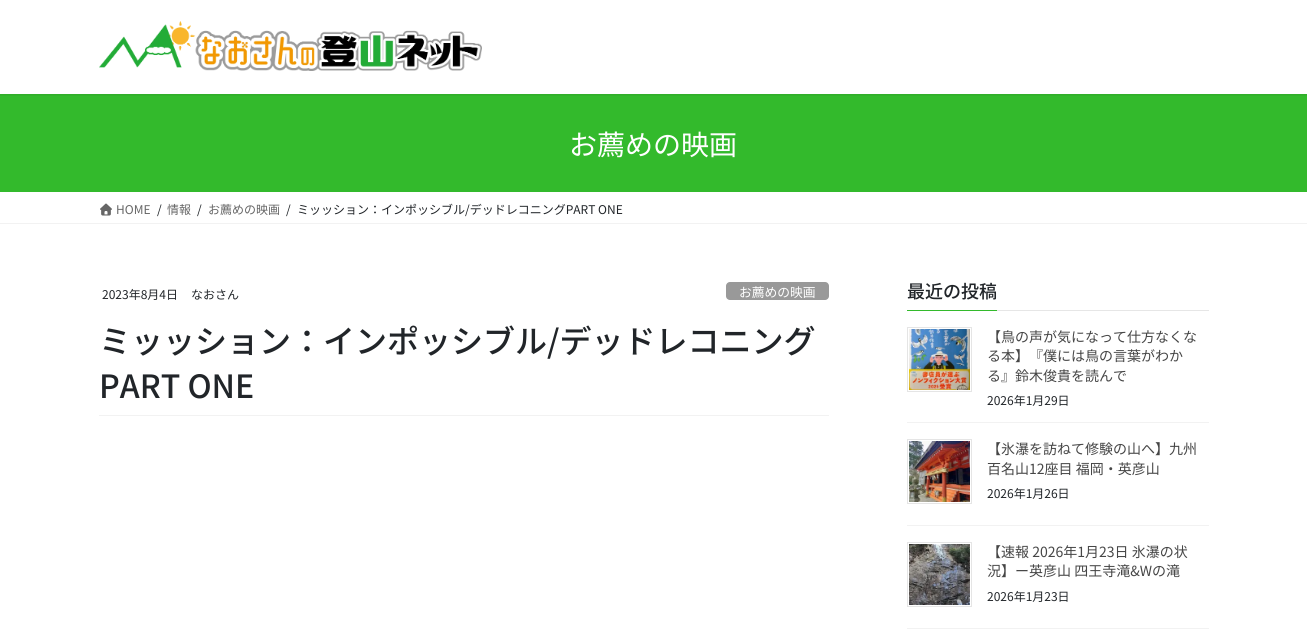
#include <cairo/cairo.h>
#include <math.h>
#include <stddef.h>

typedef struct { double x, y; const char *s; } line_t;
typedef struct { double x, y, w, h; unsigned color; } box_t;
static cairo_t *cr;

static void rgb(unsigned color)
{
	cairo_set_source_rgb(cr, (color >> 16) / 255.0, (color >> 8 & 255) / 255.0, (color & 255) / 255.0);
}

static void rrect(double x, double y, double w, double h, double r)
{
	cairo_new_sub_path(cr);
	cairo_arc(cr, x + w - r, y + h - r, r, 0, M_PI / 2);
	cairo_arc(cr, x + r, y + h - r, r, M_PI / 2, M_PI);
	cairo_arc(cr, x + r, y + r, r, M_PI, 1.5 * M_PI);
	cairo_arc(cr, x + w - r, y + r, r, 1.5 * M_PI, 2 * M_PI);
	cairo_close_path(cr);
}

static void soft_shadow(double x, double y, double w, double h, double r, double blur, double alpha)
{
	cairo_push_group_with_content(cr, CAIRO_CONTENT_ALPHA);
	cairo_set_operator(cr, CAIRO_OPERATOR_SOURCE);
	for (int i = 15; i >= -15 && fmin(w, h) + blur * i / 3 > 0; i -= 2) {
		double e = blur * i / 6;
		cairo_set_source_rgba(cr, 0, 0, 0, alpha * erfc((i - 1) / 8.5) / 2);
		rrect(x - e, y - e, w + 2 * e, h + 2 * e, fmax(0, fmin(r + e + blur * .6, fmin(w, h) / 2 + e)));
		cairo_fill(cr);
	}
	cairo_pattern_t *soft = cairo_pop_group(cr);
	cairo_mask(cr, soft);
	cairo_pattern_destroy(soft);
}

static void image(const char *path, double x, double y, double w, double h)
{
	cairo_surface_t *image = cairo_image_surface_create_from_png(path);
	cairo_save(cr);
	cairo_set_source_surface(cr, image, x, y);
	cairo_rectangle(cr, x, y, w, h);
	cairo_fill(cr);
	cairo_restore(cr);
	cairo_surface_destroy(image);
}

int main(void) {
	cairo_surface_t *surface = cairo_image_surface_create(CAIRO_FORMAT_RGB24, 1307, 635);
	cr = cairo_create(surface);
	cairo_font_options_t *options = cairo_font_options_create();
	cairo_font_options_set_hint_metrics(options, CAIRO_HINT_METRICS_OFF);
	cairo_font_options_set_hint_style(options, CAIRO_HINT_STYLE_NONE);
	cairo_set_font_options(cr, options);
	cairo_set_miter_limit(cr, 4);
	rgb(0xffffff);
	cairo_paint(cr);
	rgb(0x33ba2c);
	cairo_rectangle(cr, 0, 94, 1307, 98);
	cairo_fill(cr);
	cairo_save(cr);
	cairo_rectangle(cr, 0, 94, 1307, 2);
	cairo_clip(cr);
	rgb(0x000000);
	soft_shadow(0, 1, 1307, 94, 0, 1.5, 0.1);
	cairo_restore(cr);
	image("img/1.png", 99, 21, 383, 50);
	rgb(0xf2f2f2);
	cairo_rectangle(cr, 0, 223, 1307, 1);
	cairo_fill(cr);
	image("img/2.png", 100, 203, 12, 13);
	cairo_rectangle(cr, 99, 415, 730, 1);
	cairo_fill(cr);
	rgb(0x999999);
	rrect(726, 282, 103, 18, 4);
	cairo_fill(cr);
	{
		static const box_t items[] = {
			{997, 310, 212, 1, 0xe6e6e6},
			{907, 310, 90, 1, 0x33ba2c},
			{907, 422, 302, 1, 0xf2f2f2},
		};
		for (size_t i = 0; i < sizeof items / sizeof *items; i++) {
			rgb(items[i].color);
			cairo_rectangle(cr, items[i].x, items[i].y, items[i].w, items[i].h);
			cairo_fill(cr);
		}
	}
	cairo_rectangle(cr, 907.5, 327.5, 64, 64);
	rgb(0xe5e5e5);
	cairo_set_line_width(cr, 1);
	cairo_stroke(cr);
	image("img/3.png", 909, 329, 61, 61);
	rgb(0xf2f2f2);
	cairo_rectangle(cr, 907, 525, 302, 1);
	cairo_fill(cr);
	cairo_rectangle(cr, 907.5, 439.5, 64, 64);
	rgb(0xe5e5e5);
	cairo_stroke(cr);
	image("img/4.png", 909, 441, 61, 61);
	rgb(0xf2f2f2);
	cairo_rectangle(cr, 907, 628, 302, 1);
	cairo_fill(cr);
	cairo_rectangle(cr, 907.5, 542.5, 64, 64);
	rgb(0xe5e5e5);
	cairo_stroke(cr);
	image("img/5.png", 909, 544, 61, 61);
	cairo_select_font_face(cr, "Noto Sans JP", CAIRO_FONT_SLANT_NORMAL, CAIRO_FONT_WEIGHT_NORMAL);
	cairo_set_font_size(cr, 28);
	rgb(0xffffff);
	cairo_move_to(cr, 569, 155);
	cairo_show_text(cr, "お薦めの映画");
	cairo_set_font_size(cr, 12);
	rgb(0x666666);
	cairo_move_to(cr, 116, 214);
	cairo_show_text(cr, "HOME");
	rgb(0x212529);
	cairo_move_to(cr, 157, 214);
	cairo_show_text(cr, "/");
	rgb(0x666666);
	cairo_move_to(cr, 167, 214);
	cairo_show_text(cr, "情報");
	rgb(0x212529);
	cairo_move_to(cr, 197, 214);
	cairo_show_text(cr, "/");
	rgb(0x666666);
	cairo_move_to(cr, 208, 214);
	cairo_show_text(cr, "お薦めの映画");
	rgb(0x212529);
	{
		static const line_t items[] = {
			{286, 214, "/"},
			{297, 214, "ミッッション：インポッシブル/デッドレコニングPART ONE"},
			{102, 299, "2023年8月4日"},
			{191, 299, "なおさん"},
		};
		for (size_t i = 0; i < sizeof items / sizeof *items; i++) {
			cairo_move_to(cr, items[i].x, items[i].y);
			cairo_show_text(cr, items[i].s);
		}
	}
	cairo_set_font_size(cr, 12.75);
	rgb(0xffffff);
	cairo_move_to(cr, 739, 297);
	cairo_show_text(cr, "お薦めの映画");
	cairo_select_font_face(cr, "Noto Sans JP Medium", CAIRO_FONT_SLANT_NORMAL, CAIRO_FONT_WEIGHT_NORMAL);
	cairo_set_font_size(cr, 32);
	rgb(0x212529);
	cairo_move_to(cr, 99, 353);
	cairo_show_text(cr, "ミッッション：インポッシブル/デッドレコニング");
	cairo_move_to(cr, 99, 398);
	cairo_show_text(cr, "PART ONE");
	cairo_set_font_size(cr, 18);
	cairo_move_to(cr, 907, 298);
	cairo_show_text(cr, "最近の投稿");
	cairo_select_font_face(cr, "Noto Sans JP", CAIRO_FONT_SLANT_NORMAL, CAIRO_FONT_WEIGHT_NORMAL);
	cairo_set_font_size(cr, 14);
	rgb(0x464646);
	{
		static const line_t items[] = {
			{987, 342, "【鳥の声が気になって仕方なくな"},
			{987, 361, "る本】『僕には鳥の言葉がわか"},
			{987, 381, "る』鈴木俊貴を読んで"},
		};
		for (size_t i = 0; i < sizeof items / sizeof *items; i++) {
			cairo_move_to(cr, items[i].x, items[i].y);
			cairo_show_text(cr, items[i].s);
		}
	}
	cairo_set_font_size(cr, 12);
	rgb(0x212529);
	cairo_move_to(cr, 987, 405);
	cairo_show_text(cr, "2026年1月29日");
	cairo_set_font_size(cr, 14);
	rgb(0x464646);
	cairo_move_to(cr, 987, 454);
	cairo_show_text(cr, "【氷瀑を訪ねて修験の山へ】九州");
	cairo_move_to(cr, 987, 474);
	cairo_show_text(cr, "百名山12座目 福岡・英彦山");
	cairo_set_font_size(cr, 12);
	rgb(0x212529);
	cairo_move_to(cr, 987, 498);
	cairo_show_text(cr, "2026年1月26日");
	cairo_set_font_size(cr, 14);
	rgb(0x464646);
	cairo_move_to(cr, 987, 557);
	cairo_show_text(cr, "【速報 2026年1月23日 氷瀑の状");
	cairo_move_to(cr, 987, 576);
	cairo_show_text(cr, "況】ー英彦山 四王寺滝&Wの滝");
	cairo_set_font_size(cr, 12);
	rgb(0x212529);
	cairo_move_to(cr, 987, 601);
	cairo_show_text(cr, "2026年1月23日");
	cairo_surface_write_to_png(surface, "page.png");
	cairo_font_options_destroy(options);
	cairo_destroy(cr);
	cairo_surface_destroy(surface);
	return 0;
}
